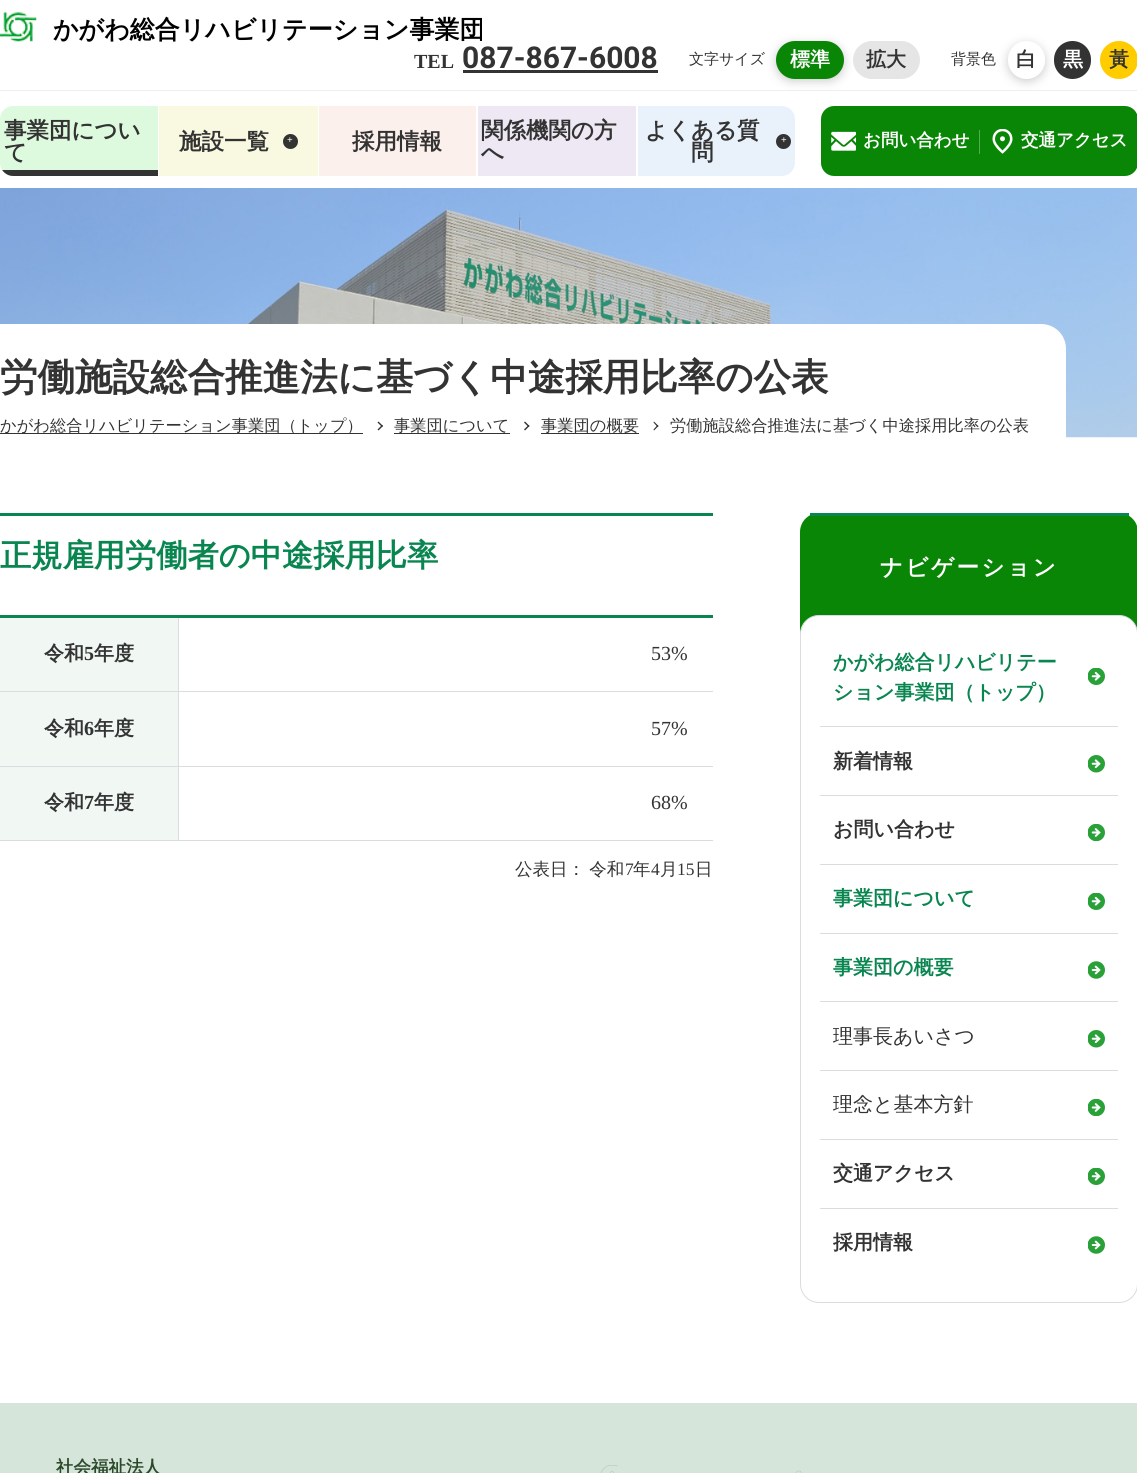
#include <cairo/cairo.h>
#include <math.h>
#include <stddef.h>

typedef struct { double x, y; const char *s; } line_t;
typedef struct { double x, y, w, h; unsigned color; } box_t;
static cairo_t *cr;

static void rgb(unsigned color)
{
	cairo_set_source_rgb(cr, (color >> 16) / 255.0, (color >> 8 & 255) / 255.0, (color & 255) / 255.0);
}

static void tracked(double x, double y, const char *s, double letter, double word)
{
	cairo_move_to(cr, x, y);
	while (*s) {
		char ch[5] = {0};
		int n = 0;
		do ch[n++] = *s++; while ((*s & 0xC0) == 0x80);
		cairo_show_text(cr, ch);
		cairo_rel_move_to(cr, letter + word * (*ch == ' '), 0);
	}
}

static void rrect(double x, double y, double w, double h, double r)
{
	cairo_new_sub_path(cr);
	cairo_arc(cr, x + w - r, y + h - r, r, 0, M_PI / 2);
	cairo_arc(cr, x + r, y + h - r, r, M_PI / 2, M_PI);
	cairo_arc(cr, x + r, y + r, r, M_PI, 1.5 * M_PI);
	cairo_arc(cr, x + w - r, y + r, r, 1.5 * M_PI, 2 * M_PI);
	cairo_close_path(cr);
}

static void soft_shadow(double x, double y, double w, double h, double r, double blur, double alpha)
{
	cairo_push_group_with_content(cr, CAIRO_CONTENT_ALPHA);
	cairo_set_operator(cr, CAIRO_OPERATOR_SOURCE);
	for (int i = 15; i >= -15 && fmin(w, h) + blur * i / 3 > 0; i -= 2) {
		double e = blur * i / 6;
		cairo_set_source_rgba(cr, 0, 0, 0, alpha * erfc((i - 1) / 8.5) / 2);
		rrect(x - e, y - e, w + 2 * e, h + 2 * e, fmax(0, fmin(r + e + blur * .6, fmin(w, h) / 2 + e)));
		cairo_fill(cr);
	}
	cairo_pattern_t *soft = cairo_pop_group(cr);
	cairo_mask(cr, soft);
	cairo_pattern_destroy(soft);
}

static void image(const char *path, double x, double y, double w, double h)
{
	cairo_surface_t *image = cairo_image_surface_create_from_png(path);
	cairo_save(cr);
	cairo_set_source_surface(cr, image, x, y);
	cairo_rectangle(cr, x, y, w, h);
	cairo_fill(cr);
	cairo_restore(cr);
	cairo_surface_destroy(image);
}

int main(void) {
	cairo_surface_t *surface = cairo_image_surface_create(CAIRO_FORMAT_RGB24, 1137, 1473);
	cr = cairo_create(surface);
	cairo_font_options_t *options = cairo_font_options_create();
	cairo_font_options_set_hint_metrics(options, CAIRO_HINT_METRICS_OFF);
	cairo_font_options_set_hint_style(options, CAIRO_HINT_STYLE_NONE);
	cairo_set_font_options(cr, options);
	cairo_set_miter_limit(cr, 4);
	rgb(0xffffff);
	cairo_paint(cr);
	image("img/1.png", 0, 12, 37, 30);
	rgb(0x333333);
	cairo_rectangle(cr, 463, 70, 195, 3);
	cairo_fill(cr);
	rgb(0x000000);
	soft_shadow(776, 44, 68, 37, 18.5, 5, 0.2);
	rgb(0x0a8607);
	rrect(776, 41, 68, 38, 19);
	cairo_fill(cr);
	rgb(0xe5e5e5);
	rrect(853, 41, 67, 38, 19);
	cairo_fill(cr);
	rgb(0x000000);
	soft_shadow(1008, 44, 37, 37, 18.5, 5, 0.2);
	rgb(0xffffff);
	rrect(1008, 41, 37, 38, 18.5);
	cairo_fill(cr);
	rgb(0x333333);
	rrect(1054, 41, 37, 38, 18.5);
	cairo_fill(cr);
	rgb(0xffcc00);
	cairo_arc(cr, 1119, 60, 19, 0, 2 * M_PI);
	cairo_fill(cr);
	rgb(0xeeeeee);
	cairo_rectangle(cr, 0, 90, 1137, 1);
	cairo_fill(cr);
	rgb(0xdefade);
	cairo_new_path(cr);
	cairo_move_to(cr, 13, 106);
	cairo_line_to(cr, 158, 106);
	cairo_line_to(cr, 158, 176);
	cairo_line_to(cr, 13, 176);
	cairo_curve_to(cr, 6, 176, 0, 170, 0, 163);
	cairo_line_to(cr, 0, 119);
	cairo_curve_to(cr, 0, 112, 6, 106, 13, 106);
	cairo_close_path(cr);
	cairo_fill(cr);
	cairo_save(cr);
	cairo_new_path(cr);
	cairo_move_to(cr, 13, 106);
	cairo_line_to(cr, 158, 106);
	cairo_line_to(cr, 158, 176);
	cairo_line_to(cr, 13, 176);
	cairo_curve_to(cr, 6, 176, 0, 170, 0, 163);
	cairo_line_to(cr, 0, 119);
	cairo_curve_to(cr, 0, 112, 6, 106, 13, 106);
	cairo_close_path(cr);
	cairo_clip(cr);
	rgb(0x333333);
	cairo_rectangle(cr, 0, 170, 158, 6);
	cairo_fill(cr);
	cairo_restore(cr);
	rgb(0xf9f8e0);
	cairo_rectangle(cr, 159, 106, 159, 70);
	cairo_fill(cr);
	rgb(0x333333);
	cairo_arc(cr, 290.5, 141.5, 7.5, 0, 2 * M_PI);
	cairo_fill(cr);
	rgb(0xfbf0eb);
	cairo_rectangle(cr, 319, 106, 157, 70);
	cairo_fill(cr);
	rgb(0xeee7f4);
	cairo_rectangle(cr, 478, 106, 158, 70);
	cairo_fill(cr);
	rgb(0xe9f2fb);
	cairo_new_path(cr);
	cairo_move_to(cr, 638, 106);
	cairo_line_to(cr, 782, 106);
	cairo_curve_to(cr, 789, 106, 795, 112, 795, 119);
	cairo_line_to(cr, 795, 163);
	cairo_curve_to(cr, 795, 170, 789, 176, 782, 176);
	cairo_line_to(cr, 638, 176);
	cairo_close_path(cr);
	cairo_fill(cr);
	rgb(0x333333);
	cairo_arc(cr, 783.5, 141.5, 7.5, 0, 2 * M_PI);
	cairo_fill(cr);
	rgb(0x0a8607);
	cairo_new_path(cr);
	cairo_move_to(cr, 834, 106);
	cairo_line_to(cr, 980, 106);
	cairo_line_to(cr, 980, 176);
	cairo_line_to(cr, 834, 176);
	cairo_curve_to(cr, 827, 176, 821, 170, 821, 163);
	cairo_line_to(cr, 821, 119);
	cairo_curve_to(cr, 821, 112, 827, 106, 834, 106);
	cairo_close_path(cr);
	cairo_fill(cr);
	image("img/2.png", 831, 131, 25, 20);
	rgb(0x54ab52);
	cairo_rectangle(cr, 979, 130, 1, 24);
	cairo_fill(cr);
	rgb(0x0a8607);
	cairo_new_path(cr);
	cairo_move_to(cr, 980, 106);
	cairo_line_to(cr, 1125, 106);
	cairo_curve_to(cr, 1132, 106, 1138, 112, 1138, 119);
	cairo_line_to(cr, 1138, 163);
	cairo_curve_to(cr, 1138, 170, 1132, 176, 1125, 176);
	cairo_line_to(cr, 980, 176);
	cairo_close_path(cr);
	cairo_fill(cr);
	image("img/3.png", 992, 129, 21, 25);
	image("img/4.png", 0, 188, 1137, 250);
	rgb(0xffffff);
	cairo_new_path(cr);
	cairo_move_to(cr, 0, 324);
	cairo_line_to(cr, 1041, 324);
	cairo_curve_to(cr, 1055, 324, 1066, 335, 1066, 349);
	cairo_line_to(cr, 1066, 438);
	cairo_line_to(cr, 0, 438);
	cairo_close_path(cr);
	cairo_fill(cr);
	rgb(0x333333);
	cairo_rectangle(cr, 0, 433, 363, 1);
	cairo_fill(cr);
	cairo_new_path(cr);
	cairo_move_to(cr, 377.5, 422.5);
	cairo_line_to(cr, 378.5, 421.5);
	cairo_line_to(cr, 383, 426);
	cairo_line_to(cr, 382, 427);
	cairo_close_path(cr);
	cairo_fill(cr);
	cairo_new_path(cr);
	cairo_move_to(cr, 377.5, 429.5);
	cairo_line_to(cr, 382, 425);
	cairo_line_to(cr, 383, 426);
	cairo_line_to(cr, 378.5, 430.5);
	cairo_close_path(cr);
	cairo_fill(cr);
	cairo_rectangle(cr, 394, 433, 116, 1);
	cairo_fill(cr);
	cairo_new_path(cr);
	cairo_move_to(cr, 524, 422.5);
	cairo_line_to(cr, 525, 421.5);
	cairo_line_to(cr, 529.5, 426);
	cairo_line_to(cr, 528.5, 427);
	cairo_close_path(cr);
	cairo_fill(cr);
	cairo_new_path(cr);
	cairo_move_to(cr, 524, 429.5);
	cairo_line_to(cr, 528.5, 425);
	cairo_line_to(cr, 529.5, 426);
	cairo_line_to(cr, 525, 430.5);
	cairo_close_path(cr);
	cairo_fill(cr);
	cairo_rectangle(cr, 541, 433, 98, 1);
	cairo_fill(cr);
	cairo_new_path(cr);
	cairo_move_to(cr, 653.5, 422.5);
	cairo_line_to(cr, 654, 421.5);
	cairo_line_to(cr, 658.5, 426);
	cairo_line_to(cr, 657.5, 427);
	cairo_close_path(cr);
	cairo_fill(cr);
	cairo_new_path(cr);
	cairo_move_to(cr, 653.5, 429.5);
	cairo_line_to(cr, 657.5, 425);
	cairo_line_to(cr, 658.5, 426);
	cairo_line_to(cr, 654, 430.5);
	cairo_close_path(cr);
	cairo_fill(cr);
	{
		static const box_t items[] = {
			{0, 513, 713, 3, 0x098550},
			{0, 840, 713, 1, 0xdadcdf},
			{178, 691, 535, 1, 0xdadcdf},
			{178, 766, 535, 1, 0xdadcdf},
			{178, 766, 1, 75, 0xdadcdf},
			{0, 766, 179, 1, 0xdadcdf},
			{178, 691, 1, 77, 0xdadcdf},
			{0, 691, 179, 1, 0xdadcdf},
			{178, 616, 1, 77, 0xdadcdf},
			{0, 615, 713, 3, 0x098550},
			{0, 618, 178, 73, 0xf1f7f3},
			{0, 692, 178, 74, 0xf1f7f3},
			{0, 767, 178, 73, 0xf1f7f3},
		};
		for (size_t i = 0; i < sizeof items / sizeof *items; i++) {
			rgb(items[i].color);
			cairo_rectangle(cr, items[i].x, items[i].y, items[i].w, items[i].h);
			cairo_fill(cr);
		}
	}
	rgb(0x0a8607);
	cairo_new_path(cr);
	cairo_move_to(cr, 819, 513);
	cairo_line_to(cr, 1119, 513);
	cairo_curve_to(cr, 1129.5, 513, 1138, 521.5, 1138, 532);
	cairo_line_to(cr, 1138, 634);
	cairo_line_to(cr, 800, 634);
	cairo_line_to(cr, 800, 532);
	cairo_curve_to(cr, 800, 521.5, 808.5, 513, 819, 513);
	cairo_close_path(cr);
	cairo_fill(cr);
	rgb(0x098550);
	cairo_rectangle(cr, 810, 513, 319, 3);
	cairo_fill(cr);
	rgb(0xffffff);
	rrect(800.5, 615.5, 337, 687, 18.5);
	cairo_fill_preserve(cr);
	rgb(0xdadcdf);
	cairo_set_line_width(cr, 1);
	cairo_stroke(cr);
	image("img/5.png", 1088, 668, 17, 17);
	cairo_rectangle(cr, 820, 726, 298, 1);
	cairo_fill(cr);
	image("img/6.png", 1088, 755, 17, 18);
	cairo_rectangle(cr, 820, 795, 298, 1);
	cairo_fill(cr);
	image("img/7.png", 1088, 824, 17, 17);
	cairo_rectangle(cr, 820, 864, 298, 1);
	cairo_fill(cr);
	image("img/5.png", 1088, 893, 17, 17);
	cairo_rectangle(cr, 820, 933, 298, 1);
	cairo_fill(cr);
	image("img/8.png", 1088, 961, 17, 18);
	cairo_rectangle(cr, 820, 1001, 298, 1);
	cairo_fill(cr);
	image("img/6.png", 1088, 1030, 17, 18);
	cairo_rectangle(cr, 820, 1070, 298, 1);
	cairo_fill(cr);
	image("img/7.png", 1088, 1099, 17, 17);
	cairo_rectangle(cr, 820, 1139, 298, 1);
	cairo_fill(cr);
	image("img/5.png", 1088, 1168, 17, 17);
	cairo_rectangle(cr, 820, 1208, 298, 1);
	cairo_fill(cr);
	image("img/8.png", 1088, 1236, 17, 18);
	rgb(0xd6e5d9);
	cairo_rectangle(cr, 0, 1403, 1137, 70);
	cairo_fill(cr);
	image("img/9.png", 600, 1465, 18, 8);
	image("img/10.png", 792, 1470, 10, 3);
	cairo_select_font_face(cr, "WenQuanYi Zen Hei", CAIRO_FONT_SLANT_NORMAL, CAIRO_FONT_WEIGHT_BOLD);
	cairo_set_font_size(cr, 25);
	rgb(0x000000);
	cairo_move_to(cr, 53, 38);
	cairo_show_text(cr, "かがわ総合リハビリテーション事業団");
	cairo_select_font_face(cr, "Liberation Serif", CAIRO_FONT_SLANT_NORMAL, CAIRO_FONT_WEIGHT_BOLD);
	cairo_set_font_size(cr, 20);
	rgb(0x333333);
	cairo_move_to(cr, 414, 68);
	cairo_show_text(cr, "TEL");
	cairo_select_font_face(cr, "Roboto", CAIRO_FONT_SLANT_NORMAL, CAIRO_FONT_WEIGHT_BOLD);
	cairo_set_font_size(cr, 30);
	cairo_move_to(cr, 462, 68);
	cairo_show_text(cr, "087-867-6008");
	cairo_select_font_face(cr, "WenQuanYi Zen Hei Medium", CAIRO_FONT_SLANT_NORMAL, CAIRO_FONT_WEIGHT_NORMAL);
	cairo_set_font_size(cr, 15);
	cairo_move_to(cr, 689, 64);
	cairo_show_text(cr, "文字サイズ");
	cairo_select_font_face(cr, "WenQuanYi Zen Hei", CAIRO_FONT_SLANT_NORMAL, CAIRO_FONT_WEIGHT_BOLD);
	cairo_set_font_size(cr, 20);
	rgb(0xffffff);
	cairo_move_to(cr, 790, 66);
	cairo_show_text(cr, "標準");
	rgb(0x333333);
	cairo_move_to(cr, 866, 66);
	cairo_show_text(cr, "拡大");
	cairo_select_font_face(cr, "WenQuanYi Zen Hei Medium", CAIRO_FONT_SLANT_NORMAL, CAIRO_FONT_WEIGHT_NORMAL);
	cairo_set_font_size(cr, 15);
	cairo_move_to(cr, 951, 64);
	cairo_show_text(cr, "背景色");
	cairo_select_font_face(cr, "WenQuanYi Zen Hei", CAIRO_FONT_SLANT_NORMAL, CAIRO_FONT_WEIGHT_BOLD);
	cairo_set_font_size(cr, 20);
	cairo_move_to(cr, 1016, 66);
	cairo_show_text(cr, "白");
	rgb(0xffffff);
	cairo_move_to(cr, 1063, 66);
	cairo_show_text(cr, "黒");
	rgb(0x333333);
	cairo_move_to(cr, 1109, 66);
	cairo_show_text(cr, "黃");
	cairo_set_font_size(cr, 22.5);
	{
		static const line_t items[] = {
			{4, 138, "事業団につい"},
			{4, 160, "て"},
			{179, 149, "施設一覧"},
		};
		for (size_t i = 0; i < sizeof items / sizeof *items; i++) {
			cairo_move_to(cr, items[i].x, items[i].y);
			cairo_show_text(cr, items[i].s);
		}
	}
	cairo_select_font_face(cr, "Liberation Serif", CAIRO_FONT_SLANT_NORMAL, CAIRO_FONT_WEIGHT_BOLD);
	cairo_set_font_size(cr, 10);
	rgb(0xffffff);
	cairo_move_to(cr, 287, 143);
	cairo_show_text(cr, "+");
	cairo_select_font_face(cr, "WenQuanYi Zen Hei", CAIRO_FONT_SLANT_NORMAL, CAIRO_FONT_WEIGHT_BOLD);
	cairo_set_font_size(cr, 22.5);
	rgb(0x333333);
	{
		static const line_t items[] = {
			{352, 149, "採用情報"},
			{481, 138, "関係機関の方"},
			{481, 160, "へ"},
			{645, 138, "よくある質"},
		};
		for (size_t i = 0; i < sizeof items / sizeof *items; i++) {
			cairo_move_to(cr, items[i].x, items[i].y);
			cairo_show_text(cr, items[i].s);
		}
	}
	cairo_select_font_face(cr, "Liberation Serif", CAIRO_FONT_SLANT_NORMAL, CAIRO_FONT_WEIGHT_BOLD);
	cairo_set_font_size(cr, 10);
	rgb(0xffffff);
	cairo_move_to(cr, 781, 143);
	cairo_show_text(cr, "+");
	cairo_select_font_face(cr, "WenQuanYi Zen Hei", CAIRO_FONT_SLANT_NORMAL, CAIRO_FONT_WEIGHT_BOLD);
	cairo_set_font_size(cr, 22.5);
	rgb(0x333333);
	cairo_move_to(cr, 691, 160);
	cairo_show_text(cr, "問");
	cairo_set_font_size(cr, 17.5);
	rgb(0xffffff);
	cairo_move_to(cr, 863, 146);
	cairo_show_text(cr, "お問い合わせ");
	cairo_move_to(cr, 1021, 146);
	cairo_show_text(cr, "交通アクセス");
	cairo_set_font_size(cr, 37.5);
	rgb(0x333333);
	cairo_move_to(cr, 0, 390);
	cairo_show_text(cr, "労働施設総合推進法に基づく中途採用比率の公表");
	cairo_select_font_face(cr, "WenQuanYi Zen Hei Medium", CAIRO_FONT_SLANT_NORMAL, CAIRO_FONT_WEIGHT_NORMAL);
	cairo_set_font_size(cr, 16.25);
	{
		static const line_t items[] = {
			{0, 431, "かがわ総合リハビリテーション事業団（トップ）"},
			{394, 431, "事業団について"},
			{541, 431, "事業団の概要"},
			{670, 431, "労働施設総合推進法に基づく中途採用比率の公表"},
		};
		for (size_t i = 0; i < sizeof items / sizeof *items; i++) {
			cairo_move_to(cr, items[i].x, items[i].y);
			cairo_show_text(cr, items[i].s);
		}
	}
	cairo_select_font_face(cr, "WenQuanYi Zen Hei", CAIRO_FONT_SLANT_NORMAL, CAIRO_FONT_WEIGHT_BOLD);
	cairo_set_font_size(cr, 31.25);
	rgb(0x098550);
	cairo_move_to(cr, 0, 566);
	cairo_show_text(cr, "正規雇用労働者の中途採用比率");
	cairo_set_font_size(cr, 20);
	rgb(0x333333);
	cairo_move_to(cr, 44, 660);
	cairo_show_text(cr, "令和");
	cairo_select_font_face(cr, "Liberation Serif", CAIRO_FONT_SLANT_NORMAL, CAIRO_FONT_WEIGHT_BOLD);
	cairo_move_to(cr, 84, 660);
	cairo_show_text(cr, "5");
	cairo_select_font_face(cr, "WenQuanYi Zen Hei", CAIRO_FONT_SLANT_NORMAL, CAIRO_FONT_WEIGHT_BOLD);
	cairo_move_to(cr, 94, 660);
	cairo_show_text(cr, "年度");
	cairo_select_font_face(cr, "Liberation Serif", CAIRO_FONT_SLANT_NORMAL, CAIRO_FONT_WEIGHT_NORMAL);
	cairo_move_to(cr, 651, 660);
	cairo_show_text(cr, "53%");
	cairo_select_font_face(cr, "WenQuanYi Zen Hei", CAIRO_FONT_SLANT_NORMAL, CAIRO_FONT_WEIGHT_BOLD);
	cairo_move_to(cr, 44, 735);
	cairo_show_text(cr, "令和");
	cairo_select_font_face(cr, "Liberation Serif", CAIRO_FONT_SLANT_NORMAL, CAIRO_FONT_WEIGHT_BOLD);
	cairo_move_to(cr, 84, 735);
	cairo_show_text(cr, "6");
	cairo_select_font_face(cr, "WenQuanYi Zen Hei", CAIRO_FONT_SLANT_NORMAL, CAIRO_FONT_WEIGHT_BOLD);
	cairo_move_to(cr, 94, 735);
	cairo_show_text(cr, "年度");
	cairo_select_font_face(cr, "Liberation Serif", CAIRO_FONT_SLANT_NORMAL, CAIRO_FONT_WEIGHT_NORMAL);
	cairo_move_to(cr, 651, 735);
	cairo_show_text(cr, "57%");
	cairo_select_font_face(cr, "WenQuanYi Zen Hei", CAIRO_FONT_SLANT_NORMAL, CAIRO_FONT_WEIGHT_BOLD);
	cairo_move_to(cr, 44, 809);
	cairo_show_text(cr, "令和");
	cairo_select_font_face(cr, "Liberation Serif", CAIRO_FONT_SLANT_NORMAL, CAIRO_FONT_WEIGHT_BOLD);
	cairo_move_to(cr, 84, 809);
	cairo_show_text(cr, "7");
	cairo_select_font_face(cr, "WenQuanYi Zen Hei", CAIRO_FONT_SLANT_NORMAL, CAIRO_FONT_WEIGHT_BOLD);
	cairo_move_to(cr, 94, 809);
	cairo_show_text(cr, "年度");
	cairo_select_font_face(cr, "Liberation Serif", CAIRO_FONT_SLANT_NORMAL, CAIRO_FONT_WEIGHT_NORMAL);
	cairo_move_to(cr, 651, 809);
	cairo_show_text(cr, "68%");
	cairo_select_font_face(cr, "WenQuanYi Zen Hei Medium", CAIRO_FONT_SLANT_NORMAL, CAIRO_FONT_WEIGHT_NORMAL);
	cairo_set_font_size(cr, 17.5);
	tracked(515, 875, "公表日： 令和", 0, -1);
	cairo_select_font_face(cr, "Liberation Serif", CAIRO_FONT_SLANT_NORMAL, CAIRO_FONT_WEIGHT_NORMAL);
	cairo_move_to(cr, 625, 875);
	cairo_show_text(cr, "7");
	cairo_select_font_face(cr, "WenQuanYi Zen Hei Medium", CAIRO_FONT_SLANT_NORMAL, CAIRO_FONT_WEIGHT_NORMAL);
	cairo_move_to(cr, 633, 875);
	cairo_show_text(cr, "年");
	cairo_select_font_face(cr, "Liberation Serif", CAIRO_FONT_SLANT_NORMAL, CAIRO_FONT_WEIGHT_NORMAL);
	cairo_move_to(cr, 651, 875);
	cairo_show_text(cr, "4");
	cairo_select_font_face(cr, "WenQuanYi Zen Hei Medium", CAIRO_FONT_SLANT_NORMAL, CAIRO_FONT_WEIGHT_NORMAL);
	cairo_move_to(cr, 660, 875);
	cairo_show_text(cr, "月");
	cairo_select_font_face(cr, "Liberation Serif", CAIRO_FONT_SLANT_NORMAL, CAIRO_FONT_WEIGHT_NORMAL);
	cairo_move_to(cr, 677, 875);
	cairo_show_text(cr, "15");
	cairo_select_font_face(cr, "WenQuanYi Zen Hei Medium", CAIRO_FONT_SLANT_NORMAL, CAIRO_FONT_WEIGHT_NORMAL);
	cairo_move_to(cr, 695, 875);
	cairo_show_text(cr, "日");
	cairo_select_font_face(cr, "WenQuanYi Zen Hei", CAIRO_FONT_SLANT_NORMAL, CAIRO_FONT_WEIGHT_BOLD);
	cairo_set_font_size(cr, 22.5);
	rgb(0xffffff);
	tracked(880, 575, "ナビゲーション", 2.5, 0);
	cairo_set_font_size(cr, 20);
	rgb(0x098550);
	cairo_move_to(cr, 833, 669);
	cairo_show_text(cr, "かがわ総合リハビリテー");
	cairo_move_to(cr, 833, 699);
	cairo_show_text(cr, "ション事業団（トップ）");
	rgb(0x333333);
	cairo_move_to(cr, 833, 768);
	cairo_show_text(cr, "新着情報");
	cairo_move_to(cr, 833, 836);
	cairo_show_text(cr, "お問い合わせ");
	rgb(0x098550);
	cairo_move_to(cr, 833, 905);
	cairo_show_text(cr, "事業団について");
	cairo_move_to(cr, 833, 974);
	cairo_show_text(cr, "事業団の概要");
	cairo_select_font_face(cr, "WenQuanYi Zen Hei Medium", CAIRO_FONT_SLANT_NORMAL, CAIRO_FONT_WEIGHT_NORMAL);
	rgb(0x333333);
	cairo_move_to(cr, 833, 1043);
	cairo_show_text(cr, "理事長あいさつ");
	cairo_move_to(cr, 833, 1111);
	cairo_show_text(cr, "理念と基本方針");
	cairo_select_font_face(cr, "WenQuanYi Zen Hei", CAIRO_FONT_SLANT_NORMAL, CAIRO_FONT_WEIGHT_BOLD);
	cairo_move_to(cr, 833, 1180);
	cairo_show_text(cr, "交通アクセス");
	cairo_move_to(cr, 833, 1249);
	cairo_show_text(cr, "採用情報");
	cairo_set_font_size(cr, 17.5);
	rgb(0x2b492b);
	cairo_move_to(cr, 56, 1473);
	cairo_show_text(cr, "社会福祉法人");
	cairo_surface_write_to_png(surface, "page.png");
	cairo_font_options_destroy(options);
	cairo_destroy(cr);
	cairo_surface_destroy(surface);
	return 0;
}
